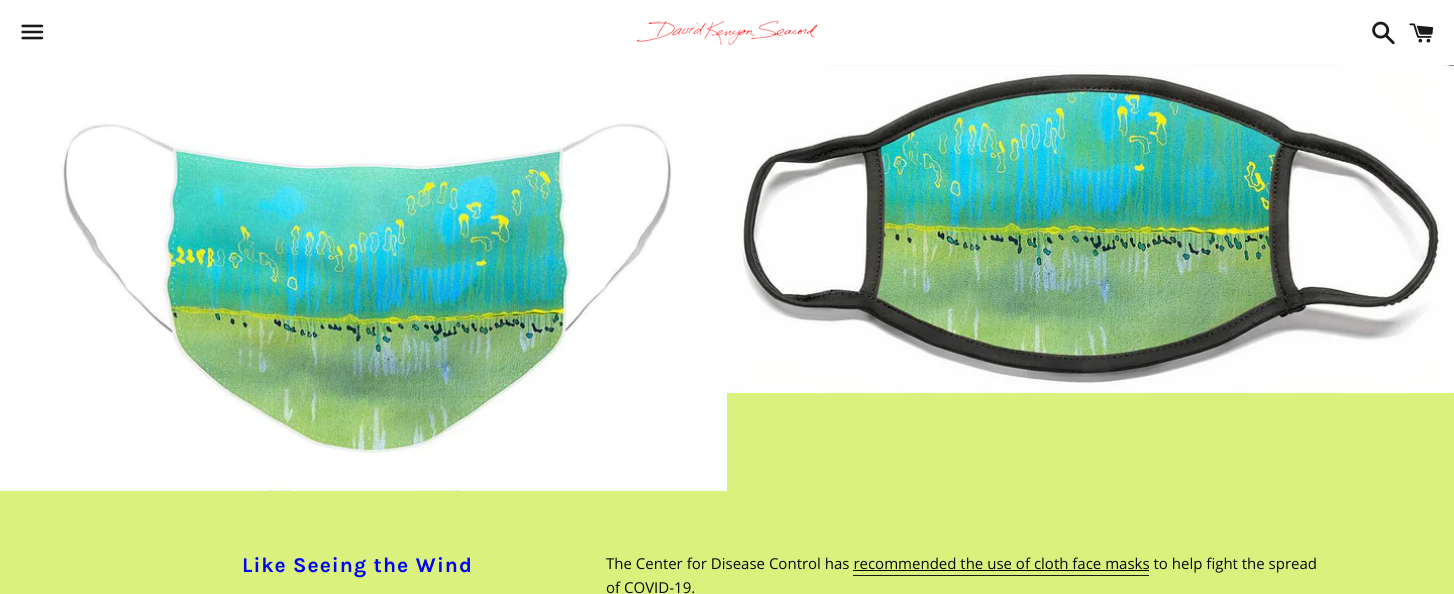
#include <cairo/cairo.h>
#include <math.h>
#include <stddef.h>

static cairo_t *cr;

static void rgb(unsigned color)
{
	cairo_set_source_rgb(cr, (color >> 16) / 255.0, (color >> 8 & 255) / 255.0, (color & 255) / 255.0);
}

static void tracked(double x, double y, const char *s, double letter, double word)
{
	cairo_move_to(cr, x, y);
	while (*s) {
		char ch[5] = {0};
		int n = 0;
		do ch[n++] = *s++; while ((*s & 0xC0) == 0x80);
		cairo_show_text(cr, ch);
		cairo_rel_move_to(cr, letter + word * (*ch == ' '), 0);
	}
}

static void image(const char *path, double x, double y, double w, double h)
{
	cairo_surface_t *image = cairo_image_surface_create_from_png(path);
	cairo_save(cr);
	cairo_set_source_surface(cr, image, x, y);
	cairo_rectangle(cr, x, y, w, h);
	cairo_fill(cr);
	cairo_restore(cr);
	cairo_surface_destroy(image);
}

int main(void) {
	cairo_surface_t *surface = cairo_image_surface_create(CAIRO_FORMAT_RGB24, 1454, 594);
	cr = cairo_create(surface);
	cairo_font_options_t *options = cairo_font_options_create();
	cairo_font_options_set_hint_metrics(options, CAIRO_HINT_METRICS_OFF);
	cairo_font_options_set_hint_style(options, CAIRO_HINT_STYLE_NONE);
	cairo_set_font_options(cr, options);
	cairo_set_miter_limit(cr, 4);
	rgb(0xdaf17e);
	cairo_paint(cr);
	rgb(0xffffff);
	cairo_rectangle(cr, 0, 0, 1454, 65);
	cairo_fill(cr);
	image("img/1.png", 21, 24, 23, 16);
	image("img/2.png", 637, 21, 180, 24);
	image("img/3.png", 1372, 21, 23, 24);
	image("img/4.png", 1409, 23, 25, 20);
	image("img/5.png", 0, 65, 727, 426);
	image("img/6.png", 727, 65, 727, 328);
	rgb(0x080808);
	cairo_rectangle(cr, 853, 570, 296, 1);
	cairo_fill(cr);
	rgb(0x1a1a1a);
	cairo_rectangle(cr, 853, 575, 296, 1);
	cairo_fill(cr);
	cairo_select_font_face(cr, "Karla", CAIRO_FONT_SLANT_NORMAL, CAIRO_FONT_WEIGHT_BOLD);
	cairo_set_font_size(cr, 21);
	rgb(0x0004f2);
	tracked(242, 572, "Like Seeing the Wind", 1.05, 0);
	cairo_select_font_face(cr, "Open Sans", CAIRO_FONT_SLANT_NORMAL, CAIRO_FONT_WEIGHT_NORMAL);
	cairo_set_font_size(cr, 15);
	rgb(0x080808);
	cairo_move_to(cr, 606, 569);
	cairo_show_text(cr, "The Center for Disease Control has recommended the use of cloth face masks to help fight the spread");
	cairo_move_to(cr, 606, 593);
	cairo_show_text(cr, "of COVID-19.");
	cairo_surface_write_to_png(surface, "page.png");
	cairo_font_options_destroy(options);
	cairo_destroy(cr);
	cairo_surface_destroy(surface);
	return 0;
}
